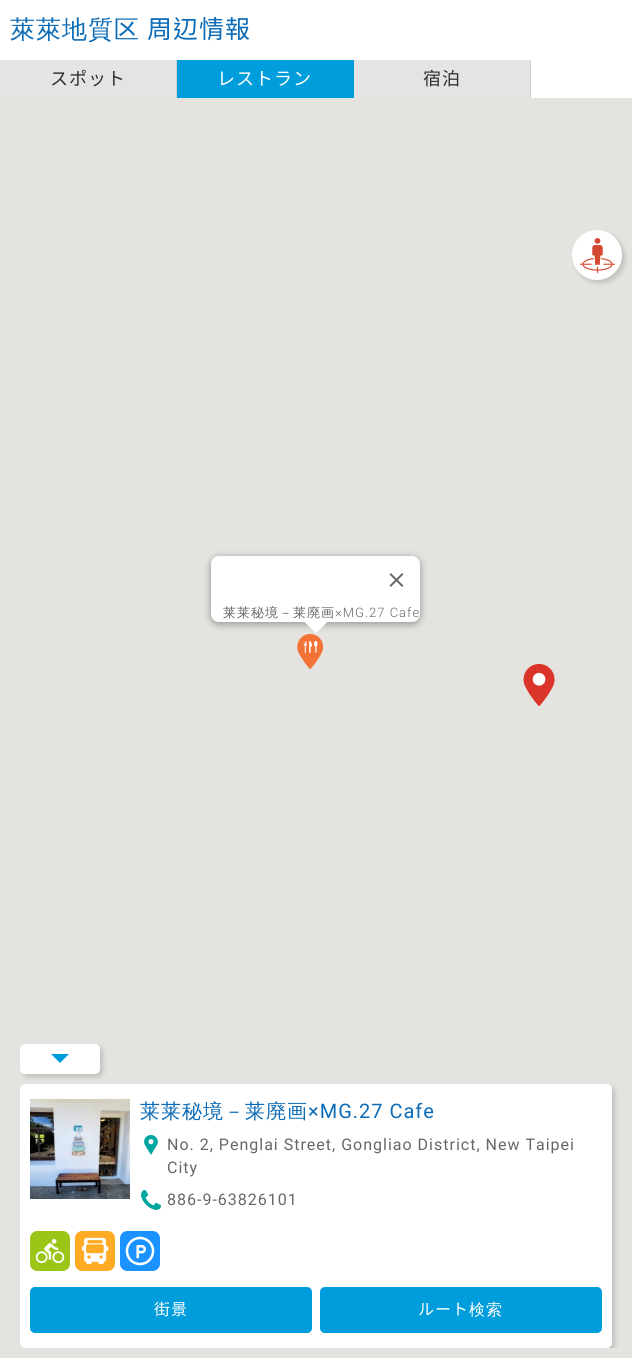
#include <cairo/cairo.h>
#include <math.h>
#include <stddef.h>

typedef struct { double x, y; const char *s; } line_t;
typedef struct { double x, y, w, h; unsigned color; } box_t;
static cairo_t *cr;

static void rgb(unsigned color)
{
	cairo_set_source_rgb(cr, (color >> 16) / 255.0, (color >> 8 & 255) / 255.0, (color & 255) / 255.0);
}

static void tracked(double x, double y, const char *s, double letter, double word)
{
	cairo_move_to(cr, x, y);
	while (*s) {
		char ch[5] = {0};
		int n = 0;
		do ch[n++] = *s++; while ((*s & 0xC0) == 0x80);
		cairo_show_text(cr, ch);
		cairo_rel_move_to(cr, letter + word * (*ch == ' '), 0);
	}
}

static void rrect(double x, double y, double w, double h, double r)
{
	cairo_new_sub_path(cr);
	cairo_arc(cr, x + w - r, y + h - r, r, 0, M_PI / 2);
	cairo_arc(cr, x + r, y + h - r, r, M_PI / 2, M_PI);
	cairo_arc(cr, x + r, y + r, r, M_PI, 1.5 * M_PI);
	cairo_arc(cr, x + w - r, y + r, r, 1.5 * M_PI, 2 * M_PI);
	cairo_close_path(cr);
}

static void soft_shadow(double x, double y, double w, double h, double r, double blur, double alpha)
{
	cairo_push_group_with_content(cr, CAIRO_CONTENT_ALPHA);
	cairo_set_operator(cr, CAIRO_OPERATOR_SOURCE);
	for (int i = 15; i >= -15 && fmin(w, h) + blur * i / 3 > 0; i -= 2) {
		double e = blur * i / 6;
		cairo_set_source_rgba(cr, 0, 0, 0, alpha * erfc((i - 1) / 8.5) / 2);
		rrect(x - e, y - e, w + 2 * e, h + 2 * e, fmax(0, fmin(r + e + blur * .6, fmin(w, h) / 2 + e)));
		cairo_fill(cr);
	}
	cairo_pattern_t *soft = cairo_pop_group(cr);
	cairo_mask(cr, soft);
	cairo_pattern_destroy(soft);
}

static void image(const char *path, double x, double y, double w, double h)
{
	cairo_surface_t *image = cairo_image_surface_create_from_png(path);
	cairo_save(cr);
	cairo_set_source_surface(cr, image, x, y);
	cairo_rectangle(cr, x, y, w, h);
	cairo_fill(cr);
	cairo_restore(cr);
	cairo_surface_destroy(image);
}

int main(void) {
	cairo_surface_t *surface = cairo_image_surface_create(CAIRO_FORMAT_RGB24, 632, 1358);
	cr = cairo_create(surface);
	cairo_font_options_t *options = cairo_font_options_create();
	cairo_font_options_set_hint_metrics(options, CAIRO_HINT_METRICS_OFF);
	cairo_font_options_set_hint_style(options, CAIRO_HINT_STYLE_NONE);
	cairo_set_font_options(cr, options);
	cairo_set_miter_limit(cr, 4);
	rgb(0xe5e3df);
	cairo_paint(cr);
	{
		static const box_t items[] = {
			{0, 0, 632, 98, 0xffffff},
			{0, 60, 176, 38, 0xe4e4e4},
			{176, 60, 1, 38, 0xd3d3d3},
			{177, 60, 177, 38, 0x009ddc},
			{354, 60, 176, 38, 0xe4e4e4},
			{530, 60, 1, 38, 0xd3d3d3},
		};
		for (size_t i = 0; i < sizeof items / sizeof *items; i++) {
			rgb(items[i].color);
			cairo_rectangle(cr, items[i].x, items[i].y, items[i].w, items[i].h);
			cairo_fill(cr);
		}
	}
	rgb(0x000000);
	soft_shadow(575, 233, 50, 50, 25, 2.5, 0.16);
	rgb(0xffffff);
	cairo_arc(cr, 597, 255, 25, 0, 2 * M_PI);
	cairo_fill(cr);
	image("img/1.png", 580, 238, 35, 35);
	image("img/3.png", 297, 634, 27, 35);
	rgb(0x000000);
	soft_shadow(210, 557, 211, 68, 9, 3.5, 0.3);
	rgb(0xffffff);
	rrect(211, 556, 209, 66, 8);
	cairo_fill(cr);
	image("img/2.png", 389, 573, 15, 14);
	cairo_new_path(cr);
	cairo_move_to(cr, 304, 621);
	cairo_line_to(cr, 304, 621.5);
	cairo_line_to(cr, 316, 633);
	cairo_line_to(cr, 328.5, 621);
	cairo_close_path(cr);
	cairo_fill(cr);
	image("img/4.png", 523, 664, 32, 42);
	rgb(0x000000);
	soft_shadow(23, 1047, 80, 30, 5, 2.5, 0.16);
	rgb(0xffffff);
	rrect(20, 1044, 80, 30, 5);
	cairo_fill(cr);
	rgb(0x009ddc);
	cairo_new_path(cr);
	cairo_move_to(cr, 51, 1054);
	cairo_line_to(cr, 69, 1054);
	cairo_line_to(cr, 60, 1063);
	cairo_close_path(cr);
	cairo_fill(cr);
	cairo_save(cr);
	cairo_rectangle(cr, 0, 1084, 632, 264);
	cairo_clip(cr);
	rgb(0x000000);
	soft_shadow(23, 1087, 592, 264, 5, 2.5, 0.16);
	cairo_restore(cr);
	rgb(0xffffff);
	rrect(20, 1084, 592, 264, 5);
	cairo_fill(cr);
	image("img/5.png", 30, 1099, 100, 100);
	image("img/6.png", 144, 1135, 14, 20);
	image("img/7.png", 141, 1190, 20, 20);
	image("img/8.png", 30, 1231, 40, 40);
	image("img/9.png", 75, 1231, 40, 40);
	image("img/10.png", 120, 1231, 40, 40);
	rgb(0x009ddc);
	rrect(30, 1287, 282, 46, 5);
	cairo_fill(cr);
	rrect(320, 1287, 282, 46, 5);
	cairo_fill(cr);
	cairo_select_font_face(cr, "WenQuanYi Zen Hei Medium", CAIRO_FONT_SLANT_NORMAL, CAIRO_FONT_WEIGHT_NORMAL);
	cairo_set_font_size(cr, 25);
	rgb(0x0c6cb7);
	tracked(10, 38, "萊萊地質区", 1, 0);
	cairo_select_font_face(cr, "Noto Sans TC", CAIRO_FONT_SLANT_NORMAL, CAIRO_FONT_WEIGHT_NORMAL);
	tracked(147, 38, "周辺情報", 1, 0);
	cairo_set_font_size(cr, 18);
	rgb(0x303030);
	tracked(50, 85, "スポット", 1, 0);
	rgb(0xffffff);
	tracked(217, 85, "レストラン", 1, 0);
	rgb(0x303030);
	tracked(423, 85, "宿泊", 1, 0);
	cairo_select_font_face(cr, "WenQuanYi Zen Hei Medium", CAIRO_FONT_SLANT_NORMAL, CAIRO_FONT_WEIGHT_NORMAL);
	cairo_set_font_size(cr, 13);
	rgb(0x676767);
	tracked(223, 617, "莱莱秘境－莱廃画", 1, 0);
	cairo_select_font_face(cr, "Roboto Light", CAIRO_FONT_SLANT_NORMAL, CAIRO_FONT_WEIGHT_NORMAL);
	tracked(335, 617, "×MG.27 Cafe", 1, 0);
	cairo_select_font_face(cr, "WenQuanYi Zen Hei Medium", CAIRO_FONT_SLANT_NORMAL, CAIRO_FONT_WEIGHT_NORMAL);
	cairo_set_font_size(cr, 20);
	rgb(0x0c6cb7);
	tracked(140, 1118, "莱莱秘境－莱廃画", 1, 0);
	cairo_select_font_face(cr, "Roboto", CAIRO_FONT_SLANT_NORMAL, CAIRO_FONT_WEIGHT_NORMAL);
	tracked(308, 1118, "×MG.27 Cafe", 1, 0);
	cairo_set_font_size(cr, 16);
	rgb(0x676767);
	{
		static const line_t items[] = {
			{167, 1150, "No. 2, Penglai Street, Gongliao District, New Taipei"},
			{167, 1173, "City"},
			{167, 1205, "886-9-63826101"},
		};
		for (size_t i = 0; i < sizeof items / sizeof *items; i++) {
			tracked(items[i].x, items[i].y, items[i].s, 1, 0);
		}
	}
	cairo_select_font_face(cr, "Noto Sans TC", CAIRO_FONT_SLANT_NORMAL, CAIRO_FONT_WEIGHT_NORMAL);
	rgb(0xffffff);
	tracked(154, 1315, "街景", 1, 0);
	tracked(418, 1315, "ルート", 1, 0);
	cairo_select_font_face(cr, "WenQuanYi Zen Hei Medium", CAIRO_FONT_SLANT_NORMAL, CAIRO_FONT_WEIGHT_NORMAL);
	tracked(469, 1315, "検索", 1, 0);
	cairo_surface_write_to_png(surface, "page.png");
	cairo_font_options_destroy(options);
	cairo_destroy(cr);
	cairo_surface_destroy(surface);
	return 0;
}
